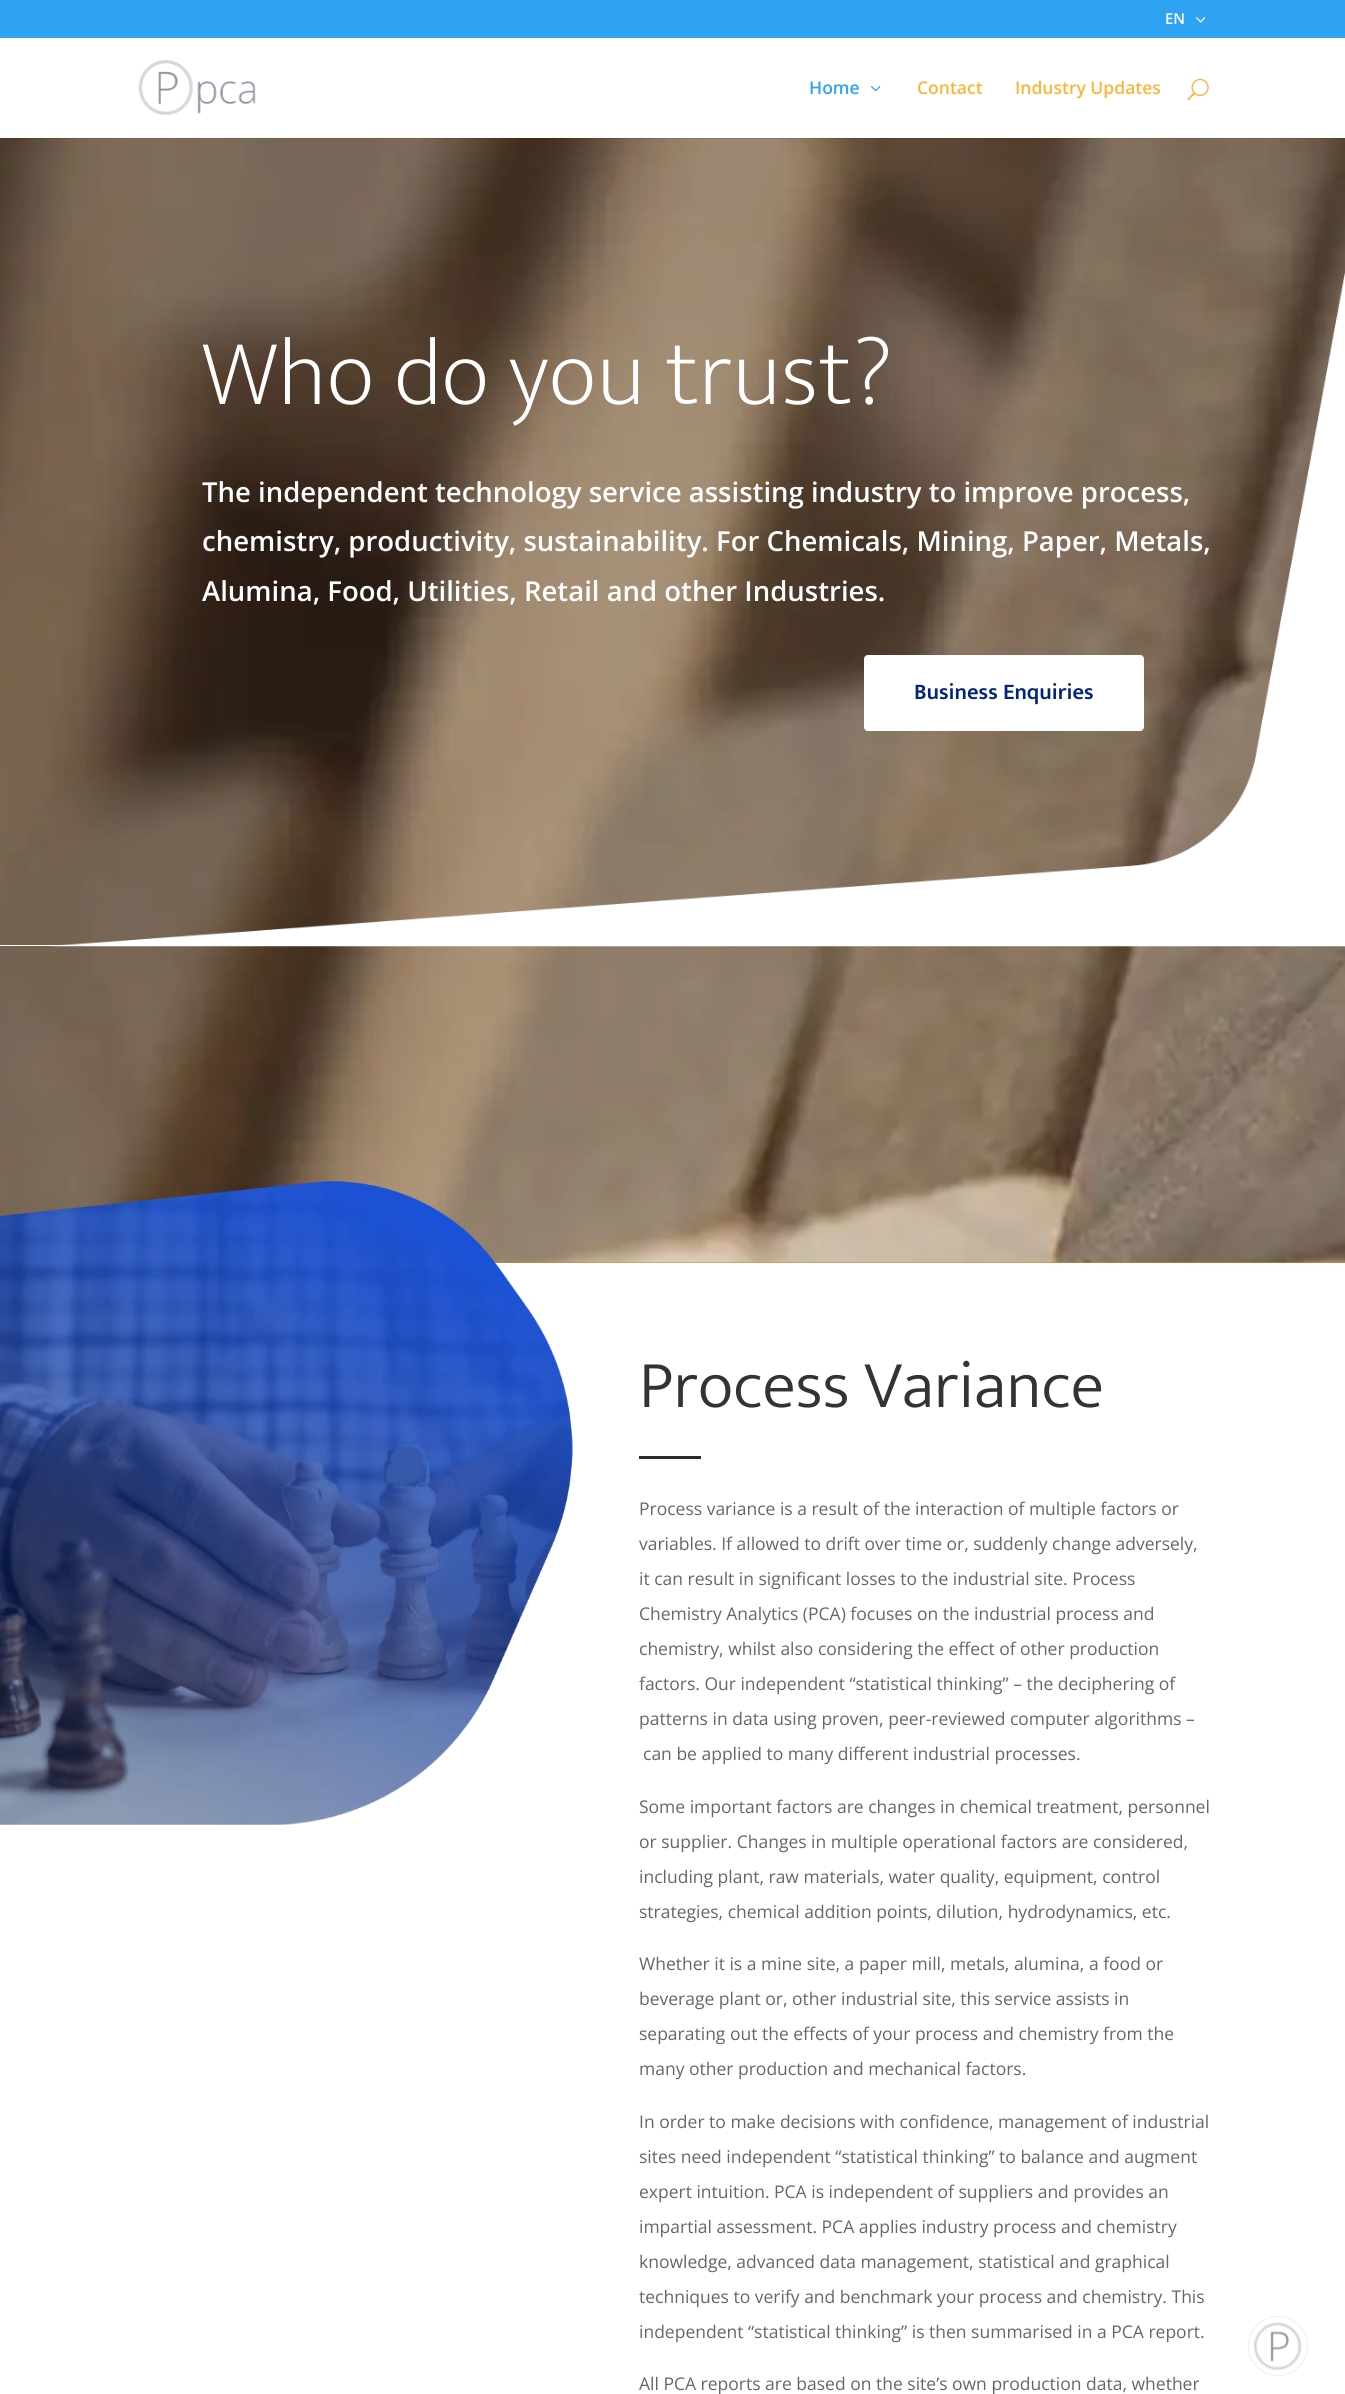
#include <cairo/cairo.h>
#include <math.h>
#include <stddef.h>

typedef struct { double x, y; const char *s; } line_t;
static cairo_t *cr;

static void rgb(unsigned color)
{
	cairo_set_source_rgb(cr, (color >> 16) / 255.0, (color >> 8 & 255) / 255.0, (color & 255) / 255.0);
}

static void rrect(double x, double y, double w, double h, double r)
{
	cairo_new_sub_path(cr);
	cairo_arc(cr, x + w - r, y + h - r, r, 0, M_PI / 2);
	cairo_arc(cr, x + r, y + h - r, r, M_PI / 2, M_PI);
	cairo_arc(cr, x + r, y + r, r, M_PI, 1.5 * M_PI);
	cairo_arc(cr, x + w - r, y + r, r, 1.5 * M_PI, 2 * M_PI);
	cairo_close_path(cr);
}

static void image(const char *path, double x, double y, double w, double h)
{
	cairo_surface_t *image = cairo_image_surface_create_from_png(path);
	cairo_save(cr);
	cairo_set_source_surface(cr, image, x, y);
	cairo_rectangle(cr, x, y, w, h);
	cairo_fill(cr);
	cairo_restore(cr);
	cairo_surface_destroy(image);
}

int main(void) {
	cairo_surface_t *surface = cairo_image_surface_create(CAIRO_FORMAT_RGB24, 1345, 2394);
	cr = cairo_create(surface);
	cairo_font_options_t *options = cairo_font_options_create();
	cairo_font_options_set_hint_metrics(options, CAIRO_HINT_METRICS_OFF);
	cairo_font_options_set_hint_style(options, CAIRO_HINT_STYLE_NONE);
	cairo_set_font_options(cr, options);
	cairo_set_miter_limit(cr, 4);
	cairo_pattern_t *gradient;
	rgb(0xffffff);
	cairo_paint(cr);
	rgb(0x2ea3f2);
	cairo_rectangle(cr, 0, 0, 1345, 38);
	cairo_fill(cr);
	image("img/1.png", 1196, 17, 10, 6);
	gradient = cairo_pattern_create_linear(413, -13, 932, 1413);
	cairo_pattern_add_color_stop_rgba(gradient, 0, 0, 0.431, 0.929, 1);
	cairo_pattern_add_color_stop_rgba(gradient, 1, 0.878, 0.6, 0, 1);
	cairo_set_source(cr, gradient);
	cairo_pattern_destroy(gradient);
	cairo_rectangle(cr, 494, 1262, 851, 1);
	cairo_fill(cr);
	image("img/5.png", 0, 138, 1345, 1125);
	cairo_set_source_rgba(cr, 0, 0, 0, 0.1);
	cairo_rectangle(cr, 0, 138, 1345, 1);
	cairo_fill(cr);
	image("img/2.png", 138, 60, 118, 55);
	image("img/3.png", 871, 86, 10, 6);
	image("img/4.png", 1187, 78, 22, 23);
	image("img/6.png", 49, 272, 1296, 675);
	rgb(0xffffff);
	cairo_rectangle(cr, 0, 945, 71, 1);
	cairo_fill(cr);
	rrect(864, 655, 280, 76, 4);
	cairo_fill(cr);
	cairo_arc(cr, 1278, 2346, 29.5, 0, 2 * M_PI);
	rgb(0xeeeeee);
	cairo_set_line_width(cr, 1);
	cairo_stroke(cr);
	image("img/7.png", 1253, 2322, 49, 49);
	image("img/8.png", 0, 1181, 573, 644);
	rgb(0x2a2a2a);
	cairo_rectangle(cr, 639, 1456, 62, 3);
	cairo_fill(cr);
	cairo_select_font_face(cr, "Open Sans SemiBold", CAIRO_FONT_SLANT_NORMAL, CAIRO_FONT_WEIGHT_NORMAL);
	cairo_set_font_size(cr, 15);
	rgb(0xffffff);
	cairo_move_to(cr, 1165, 24);
	cairo_show_text(cr, "EN");
	cairo_set_font_size(cr, 17.5);
	rgb(0x2ea3f2);
	cairo_move_to(cr, 809, 94);
	cairo_show_text(cr, "Home");
	rgb(0xffb337);
	cairo_move_to(cr, 917, 94);
	cairo_show_text(cr, "Contact");
	cairo_move_to(cr, 1015, 94);
	cairo_show_text(cr, "Industry Updates");
	cairo_select_font_face(cr, "Mukta ExtraLight", CAIRO_FONT_SLANT_NORMAL, CAIRO_FONT_WEIGHT_NORMAL);
	cairo_set_font_size(cr, 94.25);
	rgb(0xffffff);
	cairo_move_to(cr, 202, 404);
	cairo_show_text(cr, "Who do you trust?");
	cairo_select_font_face(cr, "Open Sans SemiBold", CAIRO_FONT_SLANT_NORMAL, CAIRO_FONT_WEIGHT_NORMAL);
	cairo_set_font_size(cr, 27.5);
	{
		static const line_t items[] = {
			{202, 502, "The independent technology service assisting industry to improve process,"},
			{202, 551, "chemistry, productivity, sustainability. For Chemicals, Mining, Paper, Metals,"},
			{202, 601, "Alumina, Food, Utilities, Retail and other Industries."},
		};
		for (size_t i = 0; i < sizeof items / sizeof *items; i++) {
			cairo_move_to(cr, items[i].x, items[i].y);
			cairo_show_text(cr, items[i].s);
		}
	}
	cairo_select_font_face(cr, "Mukta SemiBold", CAIRO_FONT_SLANT_NORMAL, CAIRO_FONT_WEIGHT_NORMAL);
	cairo_set_font_size(cr, 22.5);
	rgb(0x032579);
	cairo_move_to(cr, 914, 699);
	cairo_show_text(cr, "Business Enquiries");
	cairo_select_font_face(cr, "Mukta Light", CAIRO_FONT_SLANT_NORMAL, CAIRO_FONT_WEIGHT_NORMAL);
	cairo_set_font_size(cr, 67.5);
	rgb(0x333333);
	cairo_move_to(cr, 639, 1407);
	cairo_show_text(cr, "Process Variance");
	cairo_select_font_face(cr, "Open Sans", CAIRO_FONT_SLANT_NORMAL, CAIRO_FONT_WEIGHT_NORMAL);
	cairo_set_font_size(cr, 17.5);
	rgb(0x666666);
	{
		static const line_t items[] = {
			{639, 1515, "Process variance is a result of the interaction of multiple factors or"},
			{639, 1550, "variables. If allowed to drift over time or, suddenly change adversely,"},
			{639, 1585, "it can result in significant losses to the industrial site. Process"},
			{639, 1620, "Chemistry Analytics (PCA) focuses on the industrial process and"},
			{639, 1655, "chemistry, whilst also considering the effect of other production"},
			{639, 1690, "factors. Our independent “statistical thinking” – the deciphering of"},
			{639, 1725, "patterns in data using proven, peer-reviewed computer algorithms –"},
			{643, 1760, "can be applied to many different industrial processes."},
			{639, 1813, "Some important factors are changes in chemical treatment, personnel"},
			{639, 1848, "or supplier. Changes in multiple operational factors are considered,"},
			{639, 1883, "including plant, raw materials, water quality, equipment, control"},
			{639, 1918, "strategies, chemical addition points, dilution, hydrodynamics, etc."},
			{639, 1970, "Whether it is a mine site, a paper mill, metals, alumina, a food or"},
			{639, 2005, "beverage plant or, other industrial site, this service assists in"},
			{639, 2040, "separating out the effects of your process and chemistry from the"},
			{639, 2075, "many other production and mechanical factors."},
			{639, 2128, "In order to make decisions with confidence, management of industrial"},
			{639, 2163, "sites need independent “statistical thinking” to balance and augment"},
			{639, 2198, "expert intuition. PCA is independent of suppliers and provides an"},
			{639, 2233, "impartial assessment. PCA applies industry process and chemistry"},
			{639, 2268, "knowledge, advanced data management, statistical and graphical"},
			{639, 2303, "techniques to verify and benchmark your process and chemistry. This"},
			{639, 2338, "independent “statistical thinking” is then summarised in a PCA report."},
			{639, 2390, "All PCA reports are based on the site’s own production data, whether"},
		};
		for (size_t i = 0; i < sizeof items / sizeof *items; i++) {
			cairo_move_to(cr, items[i].x, items[i].y);
			cairo_show_text(cr, items[i].s);
		}
	}
	cairo_surface_write_to_png(surface, "page.png");
	cairo_font_options_destroy(options);
	cairo_destroy(cr);
	cairo_surface_destroy(surface);
	return 0;
}
